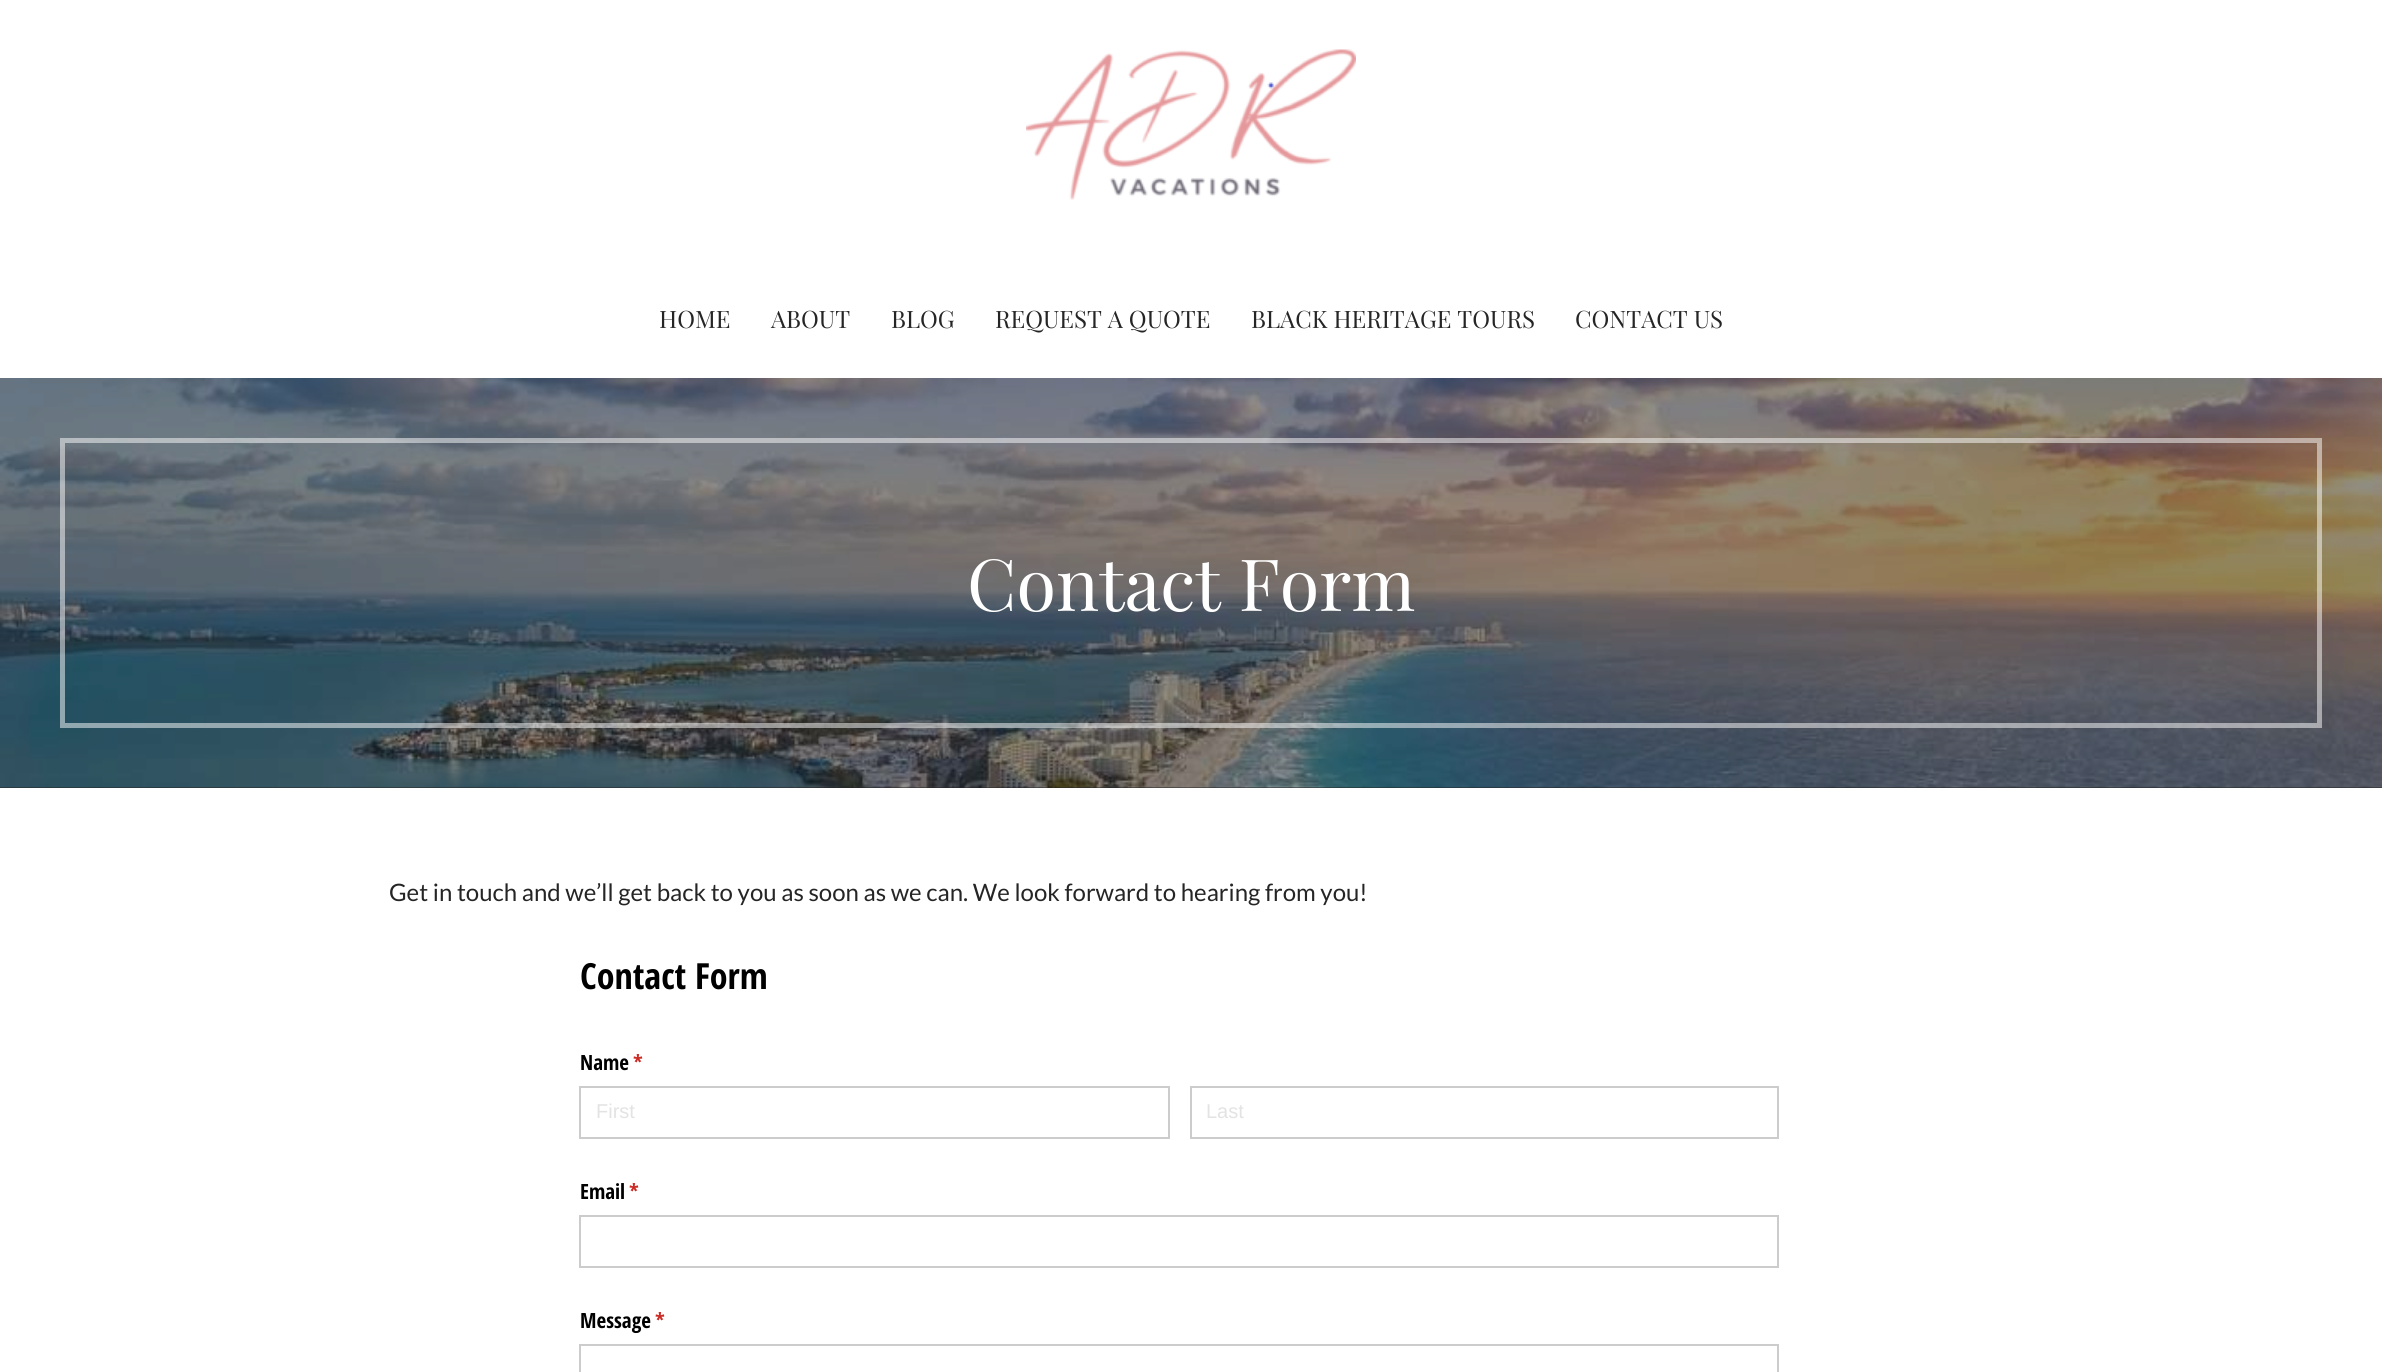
#include <cairo/cairo.h>
#include <math.h>
#include <stddef.h>

typedef struct { double x, y; const char *s; } line_t;
static cairo_t *cr;

static void rgb(unsigned color)
{
	cairo_set_source_rgb(cr, (color >> 16) / 255.0, (color >> 8 & 255) / 255.0, (color & 255) / 255.0);
}

static void image(const char *path, double x, double y, double w, double h)
{
	cairo_surface_t *image = cairo_image_surface_create_from_png(path);
	cairo_save(cr);
	cairo_set_source_surface(cr, image, x, y);
	cairo_rectangle(cr, x, y, w, h);
	cairo_fill(cr);
	cairo_restore(cr);
	cairo_surface_destroy(image);
}

int main(void) {
	cairo_surface_t *surface = cairo_image_surface_create(CAIRO_FORMAT_RGB24, 2382, 1372);
	cr = cairo_create(surface);
	cairo_font_options_t *options = cairo_font_options_create();
	cairo_font_options_set_hint_metrics(options, CAIRO_HINT_METRICS_OFF);
	cairo_font_options_set_hint_style(options, CAIRO_HINT_STYLE_NONE);
	cairo_set_font_options(cr, options);
	cairo_set_miter_limit(cr, 4);
	rgb(0xffffff);
	cairo_paint(cr);
	image("img/1.png", 1026, 49, 330, 151);
	rgb(0x252525);
	cairo_rectangle(cr, 0, 787, 2382, 1);
	cairo_fill(cr);
	image("img/2.png", 0, 378, 2382, 410);
	cairo_rectangle(cr, 62.5, 440.5, 2257, 285);
	cairo_set_source_rgba(cr, 1, 1, 1, 0.5);
	cairo_set_line_width(cr, 5);
	cairo_stroke(cr);
	cairo_rectangle(cr, 580, 1087, 589, 51);
	rgb(0xcccccc);
	cairo_set_line_width(cr, 2);
	cairo_stroke(cr);
	cairo_rectangle(cr, 1191, 1087, 587, 51);
	cairo_stroke(cr);
	cairo_rectangle(cr, 580, 1216, 1198, 51);
	cairo_stroke(cr);
	cairo_rectangle(cr, 580, 1345, 1198, 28);
	cairo_stroke(cr);
	cairo_select_font_face(cr, "Playfair Display", CAIRO_FONT_SLANT_NORMAL, CAIRO_FONT_WEIGHT_NORMAL);
	cairo_set_font_size(cr, 24);
	rgb(0x252525);
	{
		static const line_t items[] = {
			{659, 328, "HOME"},
			{771, 328, "ABOUT"},
			{891, 328, "BLOG"},
			{995, 328, "REQUEST A QUOTE"},
			{1251, 328, "BLACK HERITAGE TOURS"},
			{1575, 328, "CONTACT US"},
		};
		for (size_t i = 0; i < sizeof items / sizeof *items; i++) {
			cairo_move_to(cr, items[i].x, items[i].y);
			cairo_show_text(cr, items[i].s);
		}
	}
	cairo_set_font_size(cr, 72);
	rgb(0xffffff);
	cairo_move_to(cr, 967, 611);
	cairo_show_text(cr, "Contact Form");
	cairo_select_font_face(cr, "Lato", CAIRO_FONT_SLANT_NORMAL, CAIRO_FONT_WEIGHT_NORMAL);
	cairo_set_font_size(cr, 24);
	rgb(0x252525);
	cairo_move_to(cr, 389, 901);
	cairo_show_text(cr, "Get in touch and we’ll get back to you as soon as we can. We look forward to hearing from you!");
	cairo_select_font_face(cr, "Open Sans Condensed", CAIRO_FONT_SLANT_NORMAL, CAIRO_FONT_WEIGHT_BOLD);
	cairo_set_font_size(cr, 36);
	rgb(0x000000);
	cairo_move_to(cr, 580, 989);
	cairo_show_text(cr, "Contact Form");
	cairo_set_font_size(cr, 21);
	cairo_move_to(cr, 580, 1070);
	cairo_show_text(cr, "Name");
	rgb(0xcc2a24);
	cairo_move_to(cr, 633, 1070);
	cairo_show_text(cr, "*");
	cairo_select_font_face(cr, "Liberation Sans", CAIRO_FONT_SLANT_NORMAL, CAIRO_FONT_WEIGHT_NORMAL);
	cairo_set_font_size(cr, 20);
	rgb(0xe3e3e3);
	cairo_move_to(cr, 596, 1118);
	cairo_show_text(cr, "First");
	cairo_move_to(cr, 1206, 1118);
	cairo_show_text(cr, "Last");
	cairo_select_font_face(cr, "Open Sans Condensed", CAIRO_FONT_SLANT_NORMAL, CAIRO_FONT_WEIGHT_BOLD);
	cairo_set_font_size(cr, 21);
	rgb(0x000000);
	cairo_move_to(cr, 580, 1199);
	cairo_show_text(cr, "Email");
	rgb(0xcc2a24);
	cairo_move_to(cr, 629, 1199);
	cairo_show_text(cr, "*");
	rgb(0x000000);
	cairo_move_to(cr, 580, 1328);
	cairo_show_text(cr, "Message");
	rgb(0xcc2a24);
	cairo_move_to(cr, 655, 1328);
	cairo_show_text(cr, "*");
	cairo_surface_write_to_png(surface, "page.png");
	cairo_font_options_destroy(options);
	cairo_destroy(cr);
	cairo_surface_destroy(surface);
	return 0;
}
